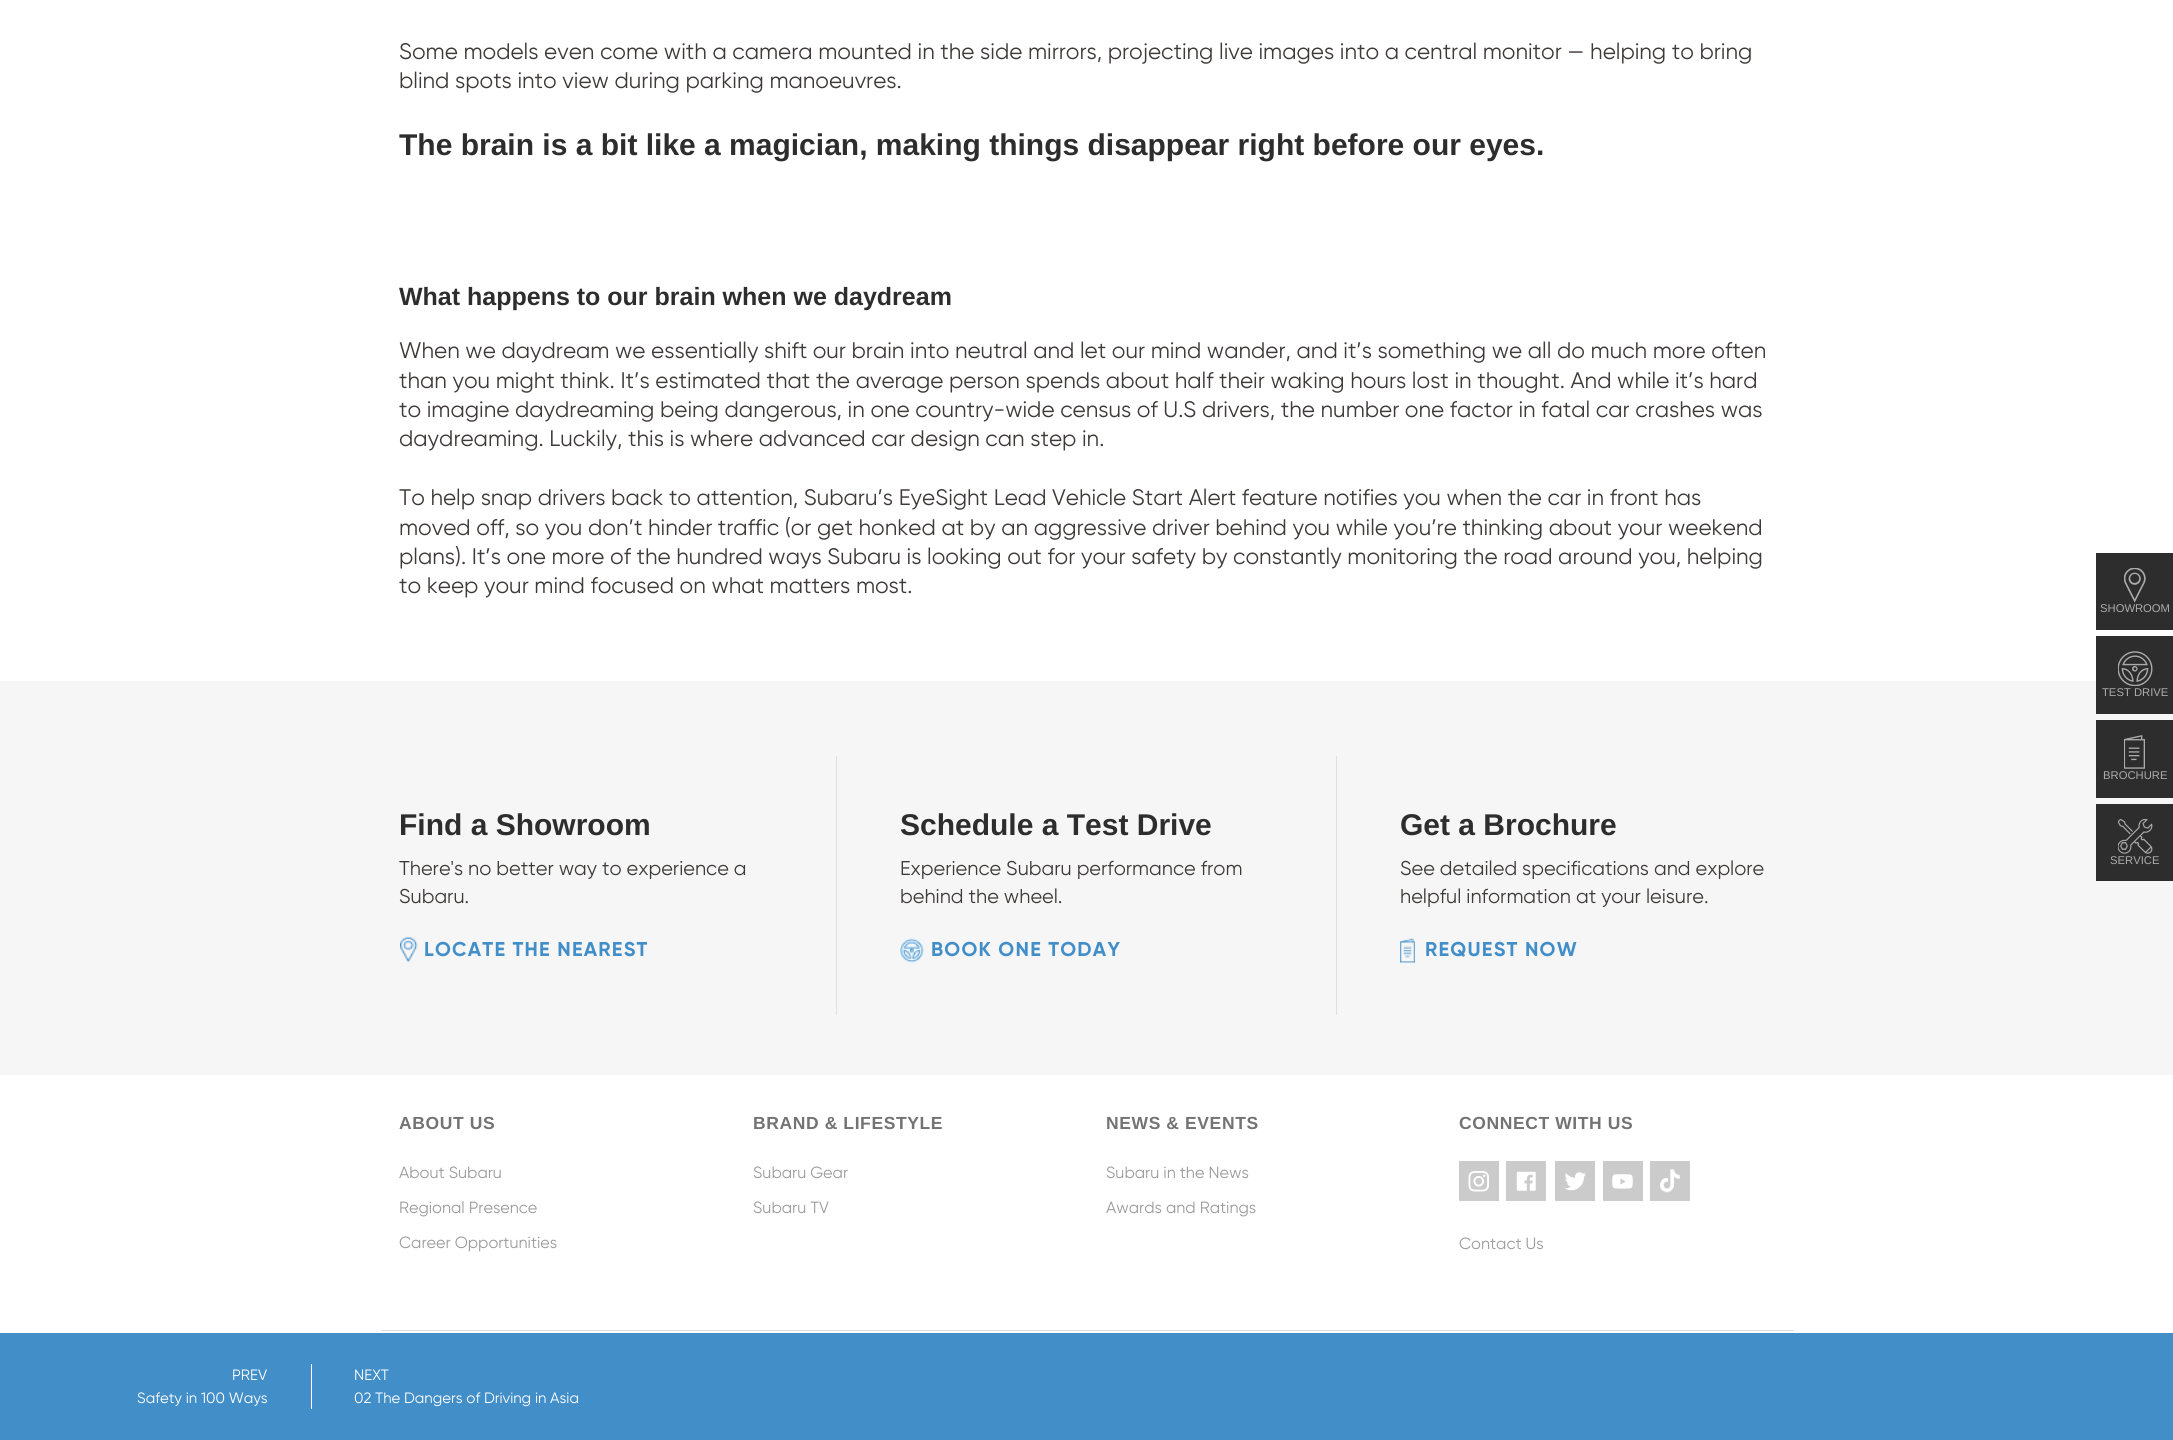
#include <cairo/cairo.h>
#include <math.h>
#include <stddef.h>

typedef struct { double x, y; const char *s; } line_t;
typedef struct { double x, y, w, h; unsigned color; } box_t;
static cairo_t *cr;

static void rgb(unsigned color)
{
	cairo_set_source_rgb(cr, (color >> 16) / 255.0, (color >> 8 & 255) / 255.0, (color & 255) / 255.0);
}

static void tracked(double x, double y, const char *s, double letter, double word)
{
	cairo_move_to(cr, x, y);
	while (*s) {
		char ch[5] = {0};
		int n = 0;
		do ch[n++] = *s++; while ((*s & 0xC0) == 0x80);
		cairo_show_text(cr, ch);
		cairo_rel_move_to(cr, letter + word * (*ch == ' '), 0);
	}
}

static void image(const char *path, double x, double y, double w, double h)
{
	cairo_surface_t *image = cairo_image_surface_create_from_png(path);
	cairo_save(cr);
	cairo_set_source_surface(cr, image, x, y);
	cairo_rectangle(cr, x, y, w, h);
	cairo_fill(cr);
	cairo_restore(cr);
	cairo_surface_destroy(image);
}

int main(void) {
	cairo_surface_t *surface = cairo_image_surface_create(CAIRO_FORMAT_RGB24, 2173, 1440);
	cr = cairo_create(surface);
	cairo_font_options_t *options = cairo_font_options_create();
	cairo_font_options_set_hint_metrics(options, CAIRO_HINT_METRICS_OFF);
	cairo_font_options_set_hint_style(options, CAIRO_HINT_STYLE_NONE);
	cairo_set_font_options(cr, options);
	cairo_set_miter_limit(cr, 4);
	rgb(0xffffff);
	cairo_paint(cr);
	rgb(0x2d2d2d);
	cairo_rectangle(cr, 2096, 553, 77, 77);
	cairo_fill(cr);
	image("img/1.png", 2124, 568, 22, 35);
	rgb(0xf6f6f6);
	cairo_rectangle(cr, 0, 681, 2173, 394);
	cairo_fill(cr);
	rgb(0x2d2d2d);
	cairo_rectangle(cr, 2096, 636, 77, 78);
	cairo_fill(cr);
	image("img/2.png", 2118, 651, 35, 35);
	cairo_rectangle(cr, 2096, 720, 77, 78);
	cairo_fill(cr);
	image("img/3.png", 2124, 735, 21, 34);
	cairo_rectangle(cr, 2096, 804, 77, 77);
	cairo_fill(cr);
	image("img/4.png", 2118, 819, 35, 35);
	image("img/5.png", 400, 937, 18, 26);
	rgb(0xe0e0e0);
	cairo_rectangle(cr, 836, 756, 1, 259);
	cairo_fill(cr);
	image("img/6.png", 900, 938, 24, 25);
	cairo_rectangle(cr, 1336, 756, 1, 259);
	cairo_fill(cr);
	image("img/7.png", 1400, 938, 15, 25);
	image("img/8.png", 1459, 1161, 40, 40);
	image("img/9.png", 1506, 1161, 40, 40);
	image("img/10.png", 1555, 1161, 40, 40);
	image("img/11.png", 1603, 1161, 40, 40);
	image("img/12.png", 1650, 1161, 40, 40);
	{
		static const box_t items[] = {
			{381, 1330, 1413, 1, 0xe0e0e0},
			{0, 1333, 2173, 107, 0x428ec9},
			{311, 1364, 1, 45, 0xffffff},
		};
		for (size_t i = 0; i < sizeof items / sizeof *items; i++) {
			rgb(items[i].color);
			cairo_rectangle(cr, items[i].x, items[i].y, items[i].w, items[i].h);
			cairo_fill(cr);
		}
	}
	cairo_select_font_face(cr, "Gilroy", CAIRO_FONT_SLANT_NORMAL, CAIRO_FONT_WEIGHT_NORMAL);
	cairo_set_font_size(cr, 22.5);
	rgb(0x3e3a39);
	cairo_move_to(cr, 399, 59);
	cairo_show_text(cr, "Some models even come with a camera mounted in the side mirrors, projecting live images into a central monitor — helping to bring");
	cairo_move_to(cr, 399, 88);
	cairo_show_text(cr, "blind spots into view during parking manoeuvres.");
	cairo_select_font_face(cr, "Liberation Sans", CAIRO_FONT_SLANT_NORMAL, CAIRO_FONT_WEIGHT_BOLD);
	cairo_set_font_size(cr, 30);
	rgb(0x2d2d2d);
	cairo_move_to(cr, 399, 155);
	cairo_show_text(cr, "The brain is a bit like a magician, making things disappear right before our eyes.");
	cairo_set_font_size(cr, 25);
	cairo_move_to(cr, 399, 305);
	cairo_show_text(cr, "What happens to our brain when we daydream");
	cairo_select_font_face(cr, "Gilroy", CAIRO_FONT_SLANT_NORMAL, CAIRO_FONT_WEIGHT_NORMAL);
	cairo_set_font_size(cr, 22.5);
	rgb(0x3e3a39);
	{
		static const line_t items[] = {
			{399, 358, "When we daydream we essentially shift our brain into neutral and let our mind wander, and it’s something we all do much more often"},
			{399, 388, "than you might think. It’s estimated that the average person spends about half their waking hours lost in thought. And while it’s hard"},
			{399, 417, "to imagine daydreaming being dangerous, in one country-wide census of U.S drivers, the number one factor in fatal car crashes was"},
			{399, 446, "daydreaming. Luckily, this is where advanced car design can step in."},
			{399, 505, "To help snap drivers back to attention, Subaru’s EyeSight Lead Vehicle Start Alert feature notifies you when the car in front has"},
			{399, 535, "moved off, so you don’t hinder traffic (or get honked at by an aggressive driver behind you while you’re thinking about your weekend"},
			{399, 564, "plans). It’s one more of the hundred ways Subaru is looking out for your safety by constantly monitoring the road around you, helping"},
			{399, 593, "to keep your mind focused on what matters most."},
		};
		for (size_t i = 0; i < sizeof items / sizeof *items; i++) {
			cairo_move_to(cr, items[i].x, items[i].y);
			cairo_show_text(cr, items[i].s);
		}
	}
	cairo_select_font_face(cr, "Liberation Sans", CAIRO_FONT_SLANT_NORMAL, CAIRO_FONT_WEIGHT_NORMAL);
	cairo_set_font_size(cr, 11.25);
	rgb(0xababab);
	{
		static const line_t items[] = {
			{2100, 612, "SHOWROOM"},
			{2102, 696, "TEST DRIVE"},
			{2103, 779, "BROCHURE"},
			{2110, 864, "SERVICE"},
		};
		for (size_t i = 0; i < sizeof items / sizeof *items; i++) {
			cairo_move_to(cr, items[i].x, items[i].y);
			cairo_show_text(cr, items[i].s);
		}
	}
	cairo_select_font_face(cr, "Liberation Sans", CAIRO_FONT_SLANT_NORMAL, CAIRO_FONT_WEIGHT_BOLD);
	cairo_set_font_size(cr, 30);
	rgb(0x2d2d2d);
	cairo_move_to(cr, 399, 835);
	cairo_show_text(cr, "Find a Showroom");
	cairo_select_font_face(cr, "Gilroy", CAIRO_FONT_SLANT_NORMAL, CAIRO_FONT_WEIGHT_NORMAL);
	cairo_set_font_size(cr, 20);
	rgb(0x3e3a39);
	cairo_move_to(cr, 399, 875);
	cairo_show_text(cr, "There's no better way to experience a");
	cairo_move_to(cr, 399, 903);
	cairo_show_text(cr, "Subaru.");
	cairo_select_font_face(cr, "Gilroy", CAIRO_FONT_SLANT_NORMAL, CAIRO_FONT_WEIGHT_BOLD);
	rgb(0x428ec9);
	tracked(424, 956, "LOCATE THE NEAREST", 1.25, 0);
	cairo_select_font_face(cr, "Liberation Sans", CAIRO_FONT_SLANT_NORMAL, CAIRO_FONT_WEIGHT_BOLD);
	cairo_set_font_size(cr, 30);
	rgb(0x2d2d2d);
	cairo_move_to(cr, 900, 835);
	cairo_show_text(cr, "Schedule a Test Drive");
	cairo_select_font_face(cr, "Gilroy", CAIRO_FONT_SLANT_NORMAL, CAIRO_FONT_WEIGHT_NORMAL);
	cairo_set_font_size(cr, 20);
	rgb(0x3e3a39);
	cairo_move_to(cr, 900, 875);
	cairo_show_text(cr, "Experience Subaru performance from");
	cairo_move_to(cr, 900, 903);
	cairo_show_text(cr, "behind the wheel.");
	cairo_select_font_face(cr, "Gilroy", CAIRO_FONT_SLANT_NORMAL, CAIRO_FONT_WEIGHT_BOLD);
	rgb(0x428ec9);
	tracked(931, 956, "BOOK ONE TODAY", 1.25, 0);
	cairo_select_font_face(cr, "Liberation Sans", CAIRO_FONT_SLANT_NORMAL, CAIRO_FONT_WEIGHT_BOLD);
	cairo_set_font_size(cr, 30);
	rgb(0x2d2d2d);
	cairo_move_to(cr, 1400, 835);
	cairo_show_text(cr, "Get a Brochure");
	cairo_select_font_face(cr, "Gilroy", CAIRO_FONT_SLANT_NORMAL, CAIRO_FONT_WEIGHT_NORMAL);
	cairo_set_font_size(cr, 20);
	rgb(0x3e3a39);
	cairo_move_to(cr, 1400, 875);
	cairo_show_text(cr, "See detailed specifications and explore");
	cairo_move_to(cr, 1400, 903);
	cairo_show_text(cr, "helpful information at your leisure.");
	cairo_select_font_face(cr, "Gilroy", CAIRO_FONT_SLANT_NORMAL, CAIRO_FONT_WEIGHT_BOLD);
	rgb(0x428ec9);
	tracked(1425, 956, "REQUEST NOW", 1.25, 0);
	cairo_select_font_face(cr, "Liberation Sans", CAIRO_FONT_SLANT_NORMAL, CAIRO_FONT_WEIGHT_BOLD);
	cairo_set_font_size(cr, 17.5);
	rgb(0x737373);
	tracked(399, 1129, "ABOUT US", 0.6, 0);
	cairo_select_font_face(cr, "Gilroy", CAIRO_FONT_SLANT_NORMAL, CAIRO_FONT_WEIGHT_NORMAL);
	cairo_set_font_size(cr, 16.25);
	rgb(0x9b9b9b);
	{
		static const line_t items[] = {
			{399, 1178, "About Subaru"},
			{399, 1213, "Regional Presence"},
			{399, 1248, "Career Opportunities"},
		};
		for (size_t i = 0; i < sizeof items / sizeof *items; i++) {
			cairo_move_to(cr, items[i].x, items[i].y);
			cairo_show_text(cr, items[i].s);
		}
	}
	cairo_select_font_face(cr, "Liberation Sans", CAIRO_FONT_SLANT_NORMAL, CAIRO_FONT_WEIGHT_BOLD);
	cairo_set_font_size(cr, 17.5);
	rgb(0x737373);
	tracked(753, 1129, "BRAND & LIFESTYLE", 0.6, 0);
	cairo_select_font_face(cr, "Gilroy", CAIRO_FONT_SLANT_NORMAL, CAIRO_FONT_WEIGHT_NORMAL);
	cairo_set_font_size(cr, 16.25);
	rgb(0x9b9b9b);
	cairo_move_to(cr, 753, 1178);
	cairo_show_text(cr, "Subaru Gear");
	cairo_move_to(cr, 753, 1213);
	cairo_show_text(cr, "Subaru TV");
	cairo_select_font_face(cr, "Liberation Sans", CAIRO_FONT_SLANT_NORMAL, CAIRO_FONT_WEIGHT_BOLD);
	cairo_set_font_size(cr, 17.5);
	rgb(0x737373);
	tracked(1106, 1129, "NEWS & EVENTS", 0.6, 0);
	cairo_select_font_face(cr, "Gilroy", CAIRO_FONT_SLANT_NORMAL, CAIRO_FONT_WEIGHT_NORMAL);
	cairo_set_font_size(cr, 16.25);
	rgb(0x9b9b9b);
	cairo_move_to(cr, 1106, 1178);
	cairo_show_text(cr, "Subaru in the News");
	cairo_move_to(cr, 1106, 1213);
	cairo_show_text(cr, "Awards and Ratings");
	cairo_select_font_face(cr, "Liberation Sans", CAIRO_FONT_SLANT_NORMAL, CAIRO_FONT_WEIGHT_BOLD);
	cairo_set_font_size(cr, 17.5);
	rgb(0x737373);
	tracked(1459, 1129, "CONNECT WITH US", 0.6, 0);
	cairo_select_font_face(cr, "Gilroy", CAIRO_FONT_SLANT_NORMAL, CAIRO_FONT_WEIGHT_NORMAL);
	cairo_set_font_size(cr, 16.25);
	rgb(0x9b9b9b);
	cairo_move_to(cr, 1459, 1249);
	cairo_show_text(cr, "Contact Us");
	cairo_set_font_size(cr, 15);
	rgb(0xffffff);
	{
		static const line_t items[] = {
			{232, 1380, "PREV"},
			{137, 1403, "Safety in 100 Ways"},
			{354, 1380, "NEXT"},
			{354, 1403, "02 The Dangers of Driving in Asia"},
		};
		for (size_t i = 0; i < sizeof items / sizeof *items; i++) {
			cairo_move_to(cr, items[i].x, items[i].y);
			cairo_show_text(cr, items[i].s);
		}
	}
	cairo_surface_write_to_png(surface, "page.png");
	cairo_font_options_destroy(options);
	cairo_destroy(cr);
	cairo_surface_destroy(surface);
	return 0;
}
